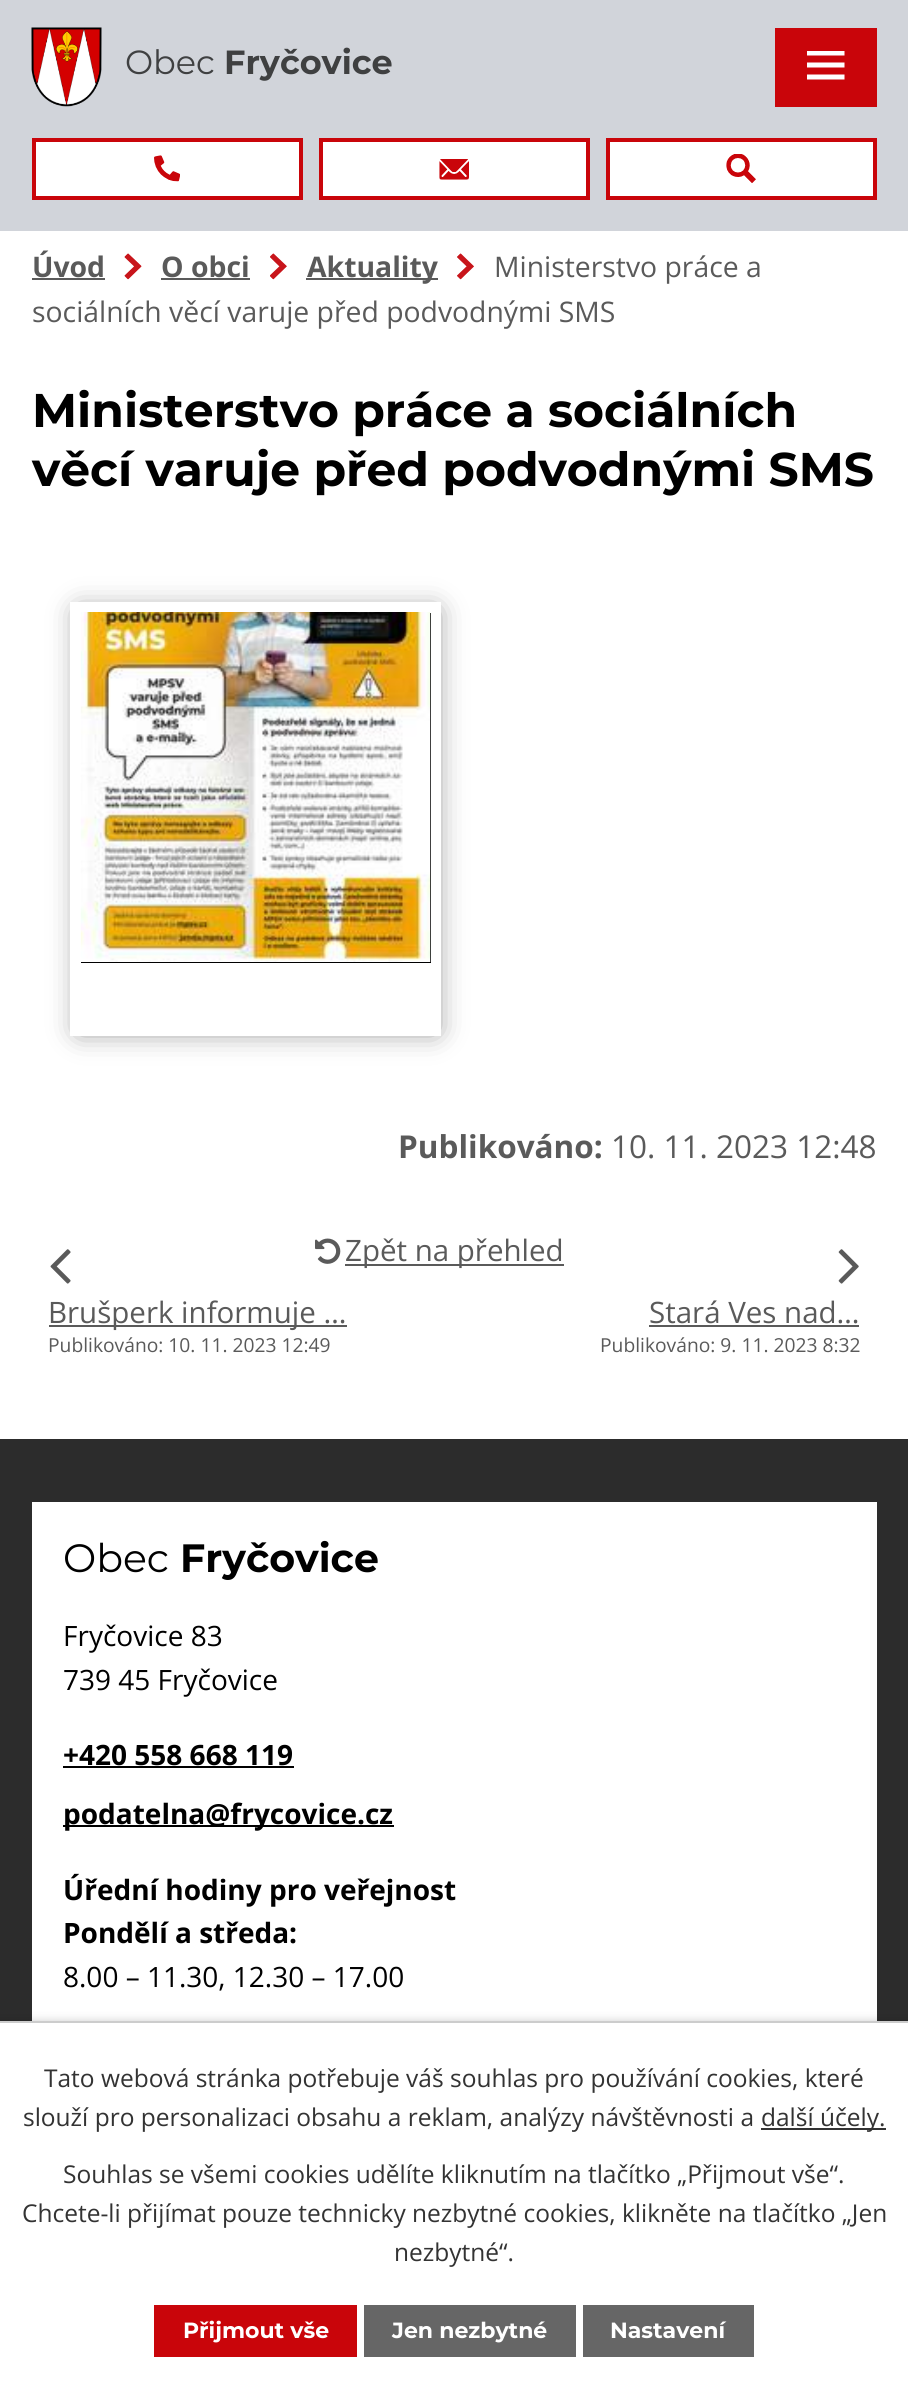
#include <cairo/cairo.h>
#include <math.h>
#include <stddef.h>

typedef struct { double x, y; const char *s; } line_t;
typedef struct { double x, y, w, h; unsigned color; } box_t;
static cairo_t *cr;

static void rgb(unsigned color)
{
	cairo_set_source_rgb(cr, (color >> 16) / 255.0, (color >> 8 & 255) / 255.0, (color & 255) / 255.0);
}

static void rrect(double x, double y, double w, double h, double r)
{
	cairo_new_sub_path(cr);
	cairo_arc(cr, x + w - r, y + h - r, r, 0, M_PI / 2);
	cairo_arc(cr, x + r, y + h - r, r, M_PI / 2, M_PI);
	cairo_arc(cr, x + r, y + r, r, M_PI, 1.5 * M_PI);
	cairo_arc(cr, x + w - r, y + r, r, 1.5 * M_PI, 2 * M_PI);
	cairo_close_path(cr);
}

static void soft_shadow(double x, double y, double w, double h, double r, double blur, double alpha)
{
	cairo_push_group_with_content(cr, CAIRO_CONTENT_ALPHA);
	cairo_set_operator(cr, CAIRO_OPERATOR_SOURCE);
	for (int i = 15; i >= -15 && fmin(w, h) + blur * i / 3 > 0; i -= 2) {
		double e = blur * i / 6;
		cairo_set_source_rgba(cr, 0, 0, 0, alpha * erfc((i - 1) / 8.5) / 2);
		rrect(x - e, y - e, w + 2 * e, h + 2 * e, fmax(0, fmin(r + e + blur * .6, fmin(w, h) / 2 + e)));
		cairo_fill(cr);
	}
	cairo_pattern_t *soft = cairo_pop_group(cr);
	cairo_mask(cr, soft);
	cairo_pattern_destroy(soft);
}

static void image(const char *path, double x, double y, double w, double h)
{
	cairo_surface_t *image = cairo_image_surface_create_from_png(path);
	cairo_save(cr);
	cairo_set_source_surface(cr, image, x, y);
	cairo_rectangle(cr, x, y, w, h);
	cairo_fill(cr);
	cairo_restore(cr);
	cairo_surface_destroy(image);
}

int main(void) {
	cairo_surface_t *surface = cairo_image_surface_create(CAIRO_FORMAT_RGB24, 908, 2390);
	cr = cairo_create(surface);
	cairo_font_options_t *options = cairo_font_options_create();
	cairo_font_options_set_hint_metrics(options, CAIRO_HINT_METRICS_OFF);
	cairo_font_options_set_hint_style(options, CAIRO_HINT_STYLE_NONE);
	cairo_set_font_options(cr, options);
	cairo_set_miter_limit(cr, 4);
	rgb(0xffffff);
	cairo_paint(cr);
	rgb(0xd1d4da);
	cairo_rectangle(cr, 0, 0, 908, 231);
	cairo_fill(cr);
	image("img/1.png", 31, 27, 71, 80);
	rgb(0xffffff);
	cairo_rectangle(cr, 34, 140, 267, 58);
	cairo_fill_preserve(cr);
	rgb(0xc9050a);
	cairo_set_line_width(cr, 4);
	cairo_stroke(cr);
	image("img/2.png", 154, 155, 26, 27);
	rgb(0xffffff);
	cairo_rectangle(cr, 321, 140, 267, 58);
	cairo_fill_preserve(cr);
	rgb(0xc9050a);
	cairo_stroke(cr);
	image("img/3.png", 439, 159, 30, 21);
	rgb(0xffffff);
	cairo_rectangle(cr, 610, 142, 263, 54);
	cairo_fill(cr);
	image("img/4.png", 726, 154, 30, 29);
	cairo_rectangle(cr, 608, 140, 267, 58);
	rgb(0xc9050a);
	cairo_stroke(cr);
	cairo_rectangle(cr, 775, 28, 102, 79);
	cairo_fill(cr);
	rgb(0xffffff);
	cairo_new_path(cr);
	cairo_move_to(cr, 807, 79.5);
	cairo_line_to(cr, 807, 74.5);
	cairo_line_to(cr, 844.5, 74.5);
	cairo_line_to(cr, 844.5, 79.5);
	cairo_close_path(cr);
	cairo_move_to(cr, 807, 51);
	cairo_line_to(cr, 844.5, 51);
	cairo_line_to(cr, 844.5, 55.5);
	cairo_line_to(cr, 807, 55.5);
	cairo_close_path(cr);
	cairo_move_to(cr, 807, 67.5);
	cairo_line_to(cr, 807, 62.5);
	cairo_line_to(cr, 844.5, 62.5);
	cairo_line_to(cr, 844.5, 67.5);
	cairo_close_path(cr);
	cairo_fill(cr);
	rgb(0x5a5a5a);
	cairo_rectangle(cr, 32, 278, 73, 2);
	cairo_fill(cr);
	image("img/5.png", 124, 253, 18, 27);
	cairo_rectangle(cr, 161, 278, 89, 2);
	cairo_fill(cr);
	image("img/6.png", 270, 253, 17, 27);
	cairo_rectangle(cr, 306, 278, 132, 2);
	cairo_fill(cr);
	image("img/7.png", 457, 253, 17, 27);
	cairo_save(cr);
	cairo_set_fill_rule(cr, CAIRO_FILL_RULE_EVEN_ODD);
	cairo_new_path(cr);
	cairo_move_to(cr, 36, 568);
	cairo_line_to(cr, 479, 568);
	cairo_line_to(cr, 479, 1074);
	cairo_line_to(cr, 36, 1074);
	cairo_close_path(cr);
	cairo_move_to(cr, 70, 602);
	cairo_line_to(cr, 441, 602);
	cairo_line_to(cr, 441, 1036);
	cairo_line_to(cr, 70, 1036);
	cairo_close_path(cr);
	cairo_clip(cr);
	rgb(0x888888);
	soft_shadow(79, 611, 357, 420, 0, 14, 1);
	cairo_restore(cr);
	rgb(0x000000);
	cairo_rectangle(cr, 81, 613, 350, 350);
	cairo_fill(cr);
	image("img/8.png", 80, 612, 351, 350);
	image("img/9.png", 315, 1238, 26, 26);
	rgb(0x5a5a5a);
	cairo_rectangle(cr, 345, 1264, 219, 2);
	cairo_fill(cr);
	image("img/10.png", 50, 1249, 21, 35);
	cairo_rectangle(cr, 49, 1325, 298, 2);
	cairo_fill(cr);
	image("img/11.png", 838, 1249, 21, 35);
	{
		static const box_t items[] = {
			{649, 1325, 210, 2, 0x5a5a5a},
			{0, 1439, 908, 582, 0x2c2c2c},
			{32, 1502, 845, 519, 0xffffff},
			{63, 1766, 231, 2, 0x000000},
			{63, 1825, 331, 2, 0x000000},
		};
		for (size_t i = 0; i < sizeof items / sizeof *items; i++) {
			rgb(items[i].color);
			cairo_rectangle(cr, items[i].x, items[i].y, items[i].w, items[i].h);
			cairo_fill(cr);
		}
	}
	rgb(0x000000);
	soft_shadow(0, 2021, 908, 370, 0, 4.5, 0.2);
	{
		static const box_t items[] = {
			{0, 2023, 908, 367, 0xffffff},
			{0, 2021, 908, 2, 0xcccccc},
			{761, 2128, 125, 2, 0x333333},
			{154, 2305, 203, 52, 0xc9050a},
			{364, 2305, 212, 52, 0x666666},
			{583, 2305, 171, 52, 0x666666},
		};
		for (size_t i = 0; i < sizeof items / sizeof *items; i++) {
			rgb(items[i].color);
			cairo_rectangle(cr, items[i].x, items[i].y, items[i].w, items[i].h);
			cairo_fill(cr);
		}
	}
	cairo_select_font_face(cr, "Montserrat", CAIRO_FONT_SLANT_NORMAL, CAIRO_FONT_WEIGHT_NORMAL);
	cairo_set_font_size(cr, 33.5);
	rgb(0x3f4041);
	cairo_move_to(cr, 125, 74);
	cairo_show_text(cr, "Obec");
	cairo_select_font_face(cr, "Montserrat", CAIRO_FONT_SLANT_NORMAL, CAIRO_FONT_WEIGHT_BOLD);
	cairo_move_to(cr, 224, 74);
	cairo_show_text(cr, "Fryčovice");
	cairo_select_font_face(cr, "Open Sans", CAIRO_FONT_SLANT_NORMAL, CAIRO_FONT_WEIGHT_BOLD);
	cairo_set_font_size(cr, 28.35);
	rgb(0x5a5a5a);
	{
		static const line_t items[] = {
			{32, 277, "Úvod"},
			{161, 277, "O obci"},
			{307, 277, "Aktuality"},
		};
		for (size_t i = 0; i < sizeof items / sizeof *items; i++) {
			cairo_move_to(cr, items[i].x, items[i].y);
			cairo_show_text(cr, items[i].s);
		}
	}
	cairo_select_font_face(cr, "Open Sans", CAIRO_FONT_SLANT_NORMAL, CAIRO_FONT_WEIGHT_NORMAL);
	cairo_move_to(cr, 494, 277);
	cairo_show_text(cr, "Ministerstvo práce a");
	cairo_move_to(cr, 32, 322);
	cairo_show_text(cr, "sociálních věcí varuje před podvodnými SMS");
	cairo_select_font_face(cr, "Montserrat", CAIRO_FONT_SLANT_NORMAL, CAIRO_FONT_WEIGHT_BOLD);
	cairo_set_font_size(cr, 47.25);
	rgb(0x000000);
	cairo_move_to(cr, 32, 427);
	cairo_show_text(cr, "Ministerstvo práce a sociálních");
	cairo_move_to(cr, 32, 486);
	cairo_show_text(cr, "věcí varuje před podvodnými SMS");
	cairo_select_font_face(cr, "Open Sans", CAIRO_FONT_SLANT_NORMAL, CAIRO_FONT_WEIGHT_BOLD);
	cairo_set_font_size(cr, 31.5);
	rgb(0x5a5a5a);
	cairo_move_to(cr, 398, 1158);
	cairo_show_text(cr, "Publikováno:");
	cairo_select_font_face(cr, "Open Sans", CAIRO_FONT_SLANT_NORMAL, CAIRO_FONT_WEIGHT_NORMAL);
	cairo_move_to(cr, 611, 1158);
	cairo_show_text(cr, "10. 11. 2023 12:48");
	cairo_set_font_size(cr, 29.5);
	cairo_move_to(cr, 345, 1261);
	cairo_show_text(cr, "Zpět na přehled");
	cairo_move_to(cr, 48, 1323);
	cairo_show_text(cr, "Brušperk informuje …");
	cairo_set_font_size(cr, 19.25);
	cairo_move_to(cr, 48, 1352);
	cairo_show_text(cr, "Publikováno: 10. 11. 2023 12:49");
	cairo_set_font_size(cr, 29.5);
	cairo_move_to(cr, 649, 1323);
	cairo_show_text(cr, "Stará Ves nad…");
	cairo_set_font_size(cr, 19.25);
	cairo_move_to(cr, 600, 1352);
	cairo_show_text(cr, "Publikováno: 9. 11. 2023 8:32");
	cairo_select_font_face(cr, "Montserrat", CAIRO_FONT_SLANT_NORMAL, CAIRO_FONT_WEIGHT_NORMAL);
	cairo_set_font_size(cr, 39.5);
	rgb(0x000000);
	cairo_move_to(cr, 63, 1572);
	cairo_show_text(cr, "Obec");
	cairo_select_font_face(cr, "Montserrat", CAIRO_FONT_SLANT_NORMAL, CAIRO_FONT_WEIGHT_BOLD);
	cairo_move_to(cr, 180, 1572);
	cairo_show_text(cr, "Fryčovice");
	cairo_select_font_face(cr, "Open Sans", CAIRO_FONT_SLANT_NORMAL, CAIRO_FONT_WEIGHT_NORMAL);
	cairo_set_font_size(cr, 28);
	cairo_move_to(cr, 63, 1646);
	cairo_show_text(cr, "Fryčovice 83");
	cairo_move_to(cr, 63, 1690);
	cairo_show_text(cr, "739 45 Fryčovice");
	cairo_select_font_face(cr, "Open Sans", CAIRO_FONT_SLANT_NORMAL, CAIRO_FONT_WEIGHT_BOLD);
	{
		static const line_t items[] = {
			{63, 1765, "+420 558 668 119"},
			{63, 1824, "podatelna@frycovice.cz"},
			{63, 1900, "Úřední hodiny pro veřejnost"},
			{63, 1943, "Pondělí a středa:"},
		};
		for (size_t i = 0; i < sizeof items / sizeof *items; i++) {
			cairo_move_to(cr, items[i].x, items[i].y);
			cairo_show_text(cr, items[i].s);
		}
	}
	cairo_select_font_face(cr, "Open Sans", CAIRO_FONT_SLANT_NORMAL, CAIRO_FONT_WEIGHT_NORMAL);
	cairo_move_to(cr, 63, 1987);
	cairo_show_text(cr, "8.00 – 11.30, 12.30 – 17.00");
	cairo_set_font_size(cr, 24.5);
	rgb(0x333333);
	{
		static const line_t items[] = {
			{44, 2087, "Tato webová stránka potřebuje váš souhlas pro používání cookies, které"},
			{23, 2126, "slouží pro personalizaci obsahu a reklam, analýzy návštěvnosti a"},
			{761, 2126, "další účely."},
			{63, 2183, "Souhlas se všemi cookies udělíte kliknutím na tlačítko „Přijmout vše“."},
			{22, 2222, "Chcete-li přijímat pouze technicky nezbytné cookies, klikněte na tlačítko „Jen"},
			{394, 2261, "nezbytné“."},
		};
		for (size_t i = 0; i < sizeof items / sizeof *items; i++) {
			cairo_move_to(cr, items[i].x, items[i].y);
			cairo_show_text(cr, items[i].s);
		}
	}
	cairo_select_font_face(cr, "Montserrat", CAIRO_FONT_SLANT_NORMAL, CAIRO_FONT_WEIGHT_BOLD);
	cairo_set_font_size(cr, 22);
	rgb(0xffffff);
	{
		static const line_t items[] = {
			{183, 2338, "Přijmout vše"},
			{392, 2338, "Jen nezbytné"},
			{610, 2338, "Nastavení"},
		};
		for (size_t i = 0; i < sizeof items / sizeof *items; i++) {
			cairo_move_to(cr, items[i].x, items[i].y);
			cairo_show_text(cr, items[i].s);
		}
	}
	cairo_surface_write_to_png(surface, "page.png");
	cairo_font_options_destroy(options);
	cairo_destroy(cr);
	cairo_surface_destroy(surface);
	return 0;
}
